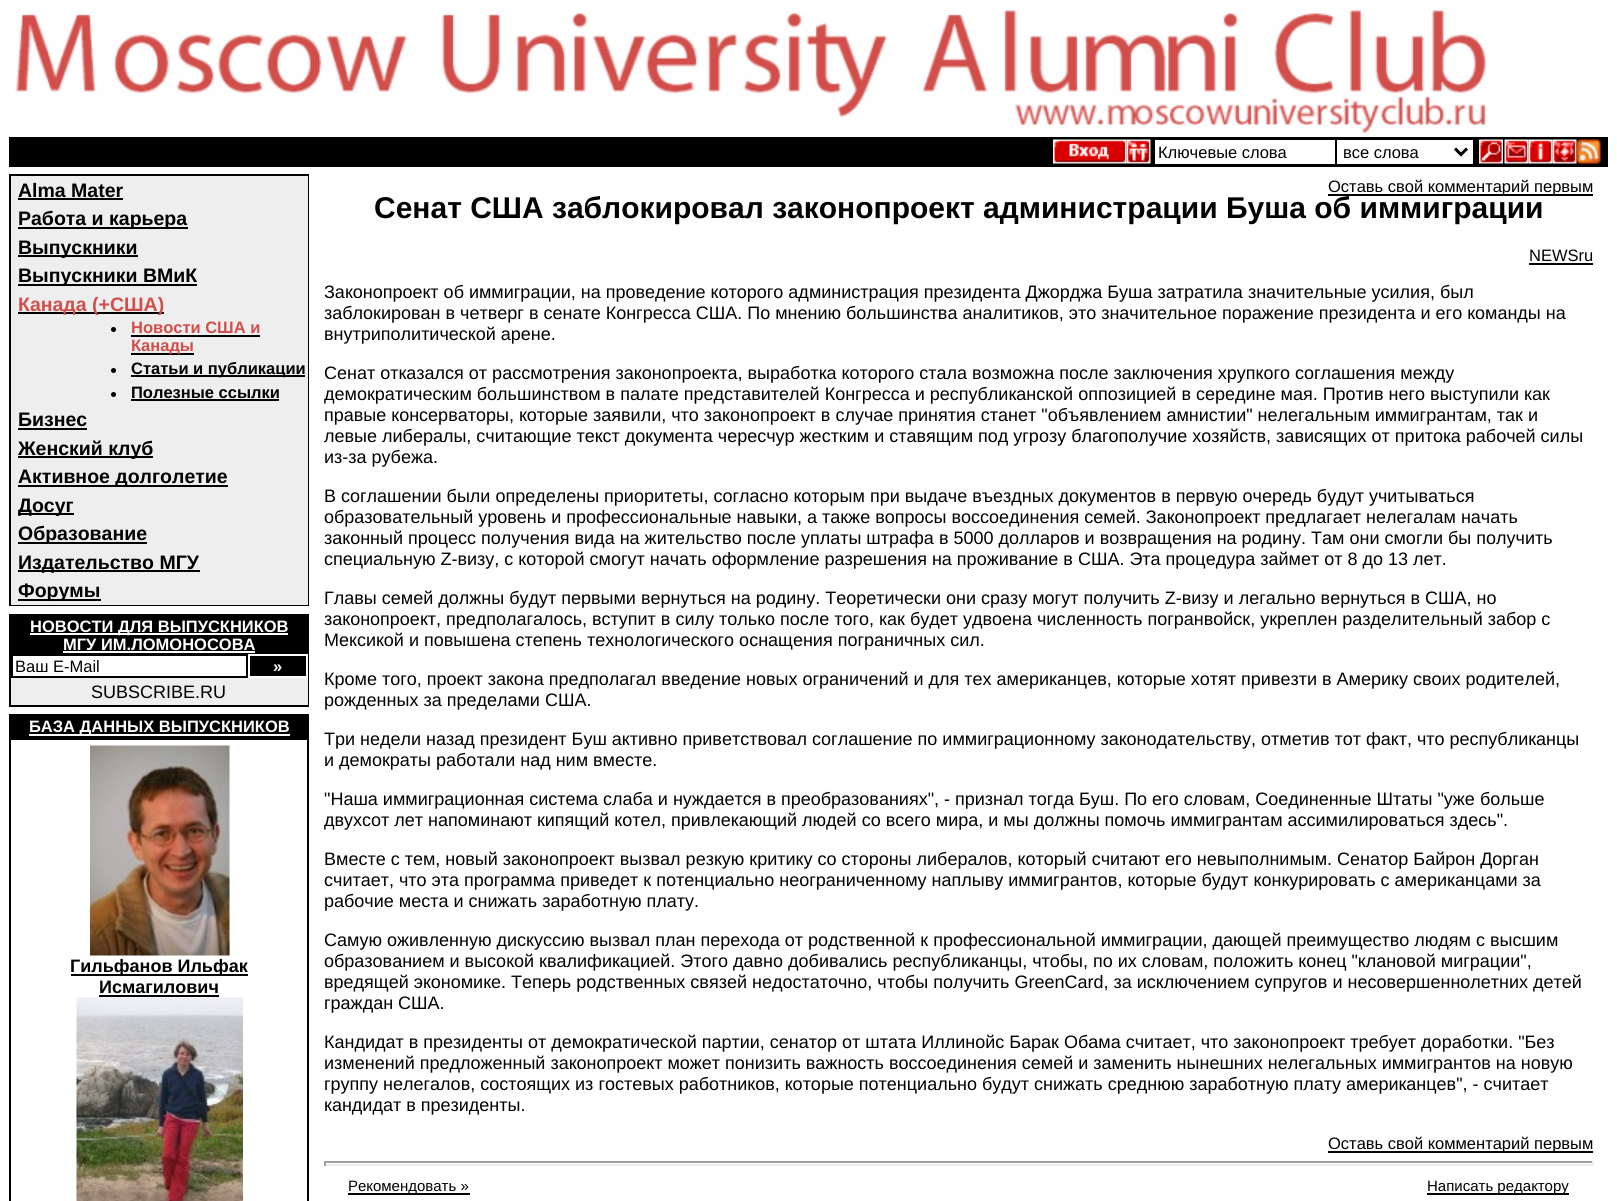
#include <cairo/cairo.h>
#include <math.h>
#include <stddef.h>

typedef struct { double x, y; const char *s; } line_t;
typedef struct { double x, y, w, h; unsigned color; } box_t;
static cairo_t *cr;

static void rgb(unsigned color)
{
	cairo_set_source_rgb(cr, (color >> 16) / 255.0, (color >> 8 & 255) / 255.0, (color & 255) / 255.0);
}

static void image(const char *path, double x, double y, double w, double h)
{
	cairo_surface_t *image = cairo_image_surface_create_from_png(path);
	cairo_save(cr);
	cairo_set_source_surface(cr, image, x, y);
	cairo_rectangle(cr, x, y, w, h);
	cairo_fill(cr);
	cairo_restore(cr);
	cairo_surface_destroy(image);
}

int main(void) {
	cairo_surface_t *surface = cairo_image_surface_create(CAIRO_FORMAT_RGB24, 1617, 1201);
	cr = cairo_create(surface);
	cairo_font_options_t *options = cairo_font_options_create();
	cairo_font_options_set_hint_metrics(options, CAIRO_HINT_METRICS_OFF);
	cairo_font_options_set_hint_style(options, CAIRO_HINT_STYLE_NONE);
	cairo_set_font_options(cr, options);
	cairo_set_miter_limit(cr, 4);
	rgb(0xffffff);
	cairo_paint(cr);
	image("img/1.png", 16, 10, 1471, 124);
	rgb(0x000000);
	cairo_rectangle(cr, 9, 137, 1599, 30);
	cairo_fill(cr);
	image("img/2.png", 1053, 139, 74, 25);
	image("img/3.png", 1126, 139, 25, 25);
	rgb(0xffffff);
	cairo_rectangle(cr, 1155, 140, 180, 24);
	cairo_fill(cr);
	cairo_rectangle(cr, 1337, 140, 136, 24);
	cairo_fill(cr);
	cairo_new_path(cr);
	cairo_move_to(cr, 1455, 148.5);
	cairo_line_to(cr, 1461, 154.5);
	cairo_line_to(cr, 1467, 148.5);
	rgb(0x000000);
	cairo_set_line_width(cr, 3);
	cairo_stroke(cr);
	image("img/4.png", 1479, 139, 24, 25);
	image("img/5.png", 1504, 139, 25, 25);
	image("img/6.png", 1528, 139, 25, 25);
	image("img/7.png", 1552, 139, 25, 25);
	image("img/8.png", 1576, 139, 25, 25);
	cairo_rectangle(cr, 10, 175, 298, 430);
	cairo_set_line_width(cr, 2);
	cairo_stroke(cr);
	{
		static const box_t items[] = {
			{11, 176, 297, 429, 0xeeeeee},
			{18, 198, 105, 2, 0x000000},
			{18, 227, 170, 2, 0x000000},
			{18, 255, 120, 2, 0x000000},
			{18, 284, 179, 2, 0x000000},
			{18, 312, 146, 2, 0x000000},
		};
		for (size_t i = 0; i < sizeof items / sizeof *items; i++) {
			rgb(items[i].color);
			cairo_rectangle(cr, items[i].x, items[i].y, items[i].w, items[i].h);
			cairo_fill(cr);
		}
	}
	cairo_arc(cr, 113.5, 329.5, 2.5, 0, 2 * M_PI);
	cairo_fill(cr);
	cairo_rectangle(cr, 131, 335, 129, 2);
	cairo_fill(cr);
	cairo_rectangle(cr, 131, 353, 63, 2);
	cairo_fill(cr);
	cairo_arc(cr, 113.5, 370.5, 2.5, 0, 2 * M_PI);
	cairo_fill(cr);
	cairo_rectangle(cr, 131, 375, 174, 2);
	cairo_fill(cr);
	cairo_arc(cr, 113.5, 394.5, 2.5, 0, 2 * M_PI);
	cairo_fill(cr);
	{
		static const box_t items[] = {
			{131, 399, 148, 2, 0x000000},
			{18, 428, 69, 2, 0x000000},
			{18, 456, 135, 2, 0x000000},
			{18, 485, 210, 2, 0x000000},
			{18, 513, 56, 2, 0x000000},
			{18, 542, 129, 2, 0x000000},
			{18, 570, 182, 2, 0x000000},
			{18, 599, 83, 2, 0x000000},
		};
		for (size_t i = 0; i < sizeof items / sizeof *items; i++) {
			rgb(items[i].color);
			cairo_rectangle(cr, items[i].x, items[i].y, items[i].w, items[i].h);
			cairo_fill(cr);
		}
	}
	cairo_rectangle(cr, 10, 615, 298, 91);
	cairo_stroke(cr);
	{
		static const box_t items[] = {
			{11, 616, 296, 38, 0x000000},
			{30, 633, 258, 2, 0xffffff},
			{63, 651, 192, 2, 0xffffff},
		};
		for (size_t i = 0; i < sizeof items / sizeof *items; i++) {
			rgb(items[i].color);
			cairo_rectangle(cr, items[i].x, items[i].y, items[i].w, items[i].h);
			cairo_fill(cr);
		}
	}
	cairo_rectangle(cr, 12, 655, 235, 22);
	rgb(0x000000);
	cairo_stroke(cr);
	cairo_rectangle(cr, 249, 655, 58, 22);
	cairo_fill_preserve(cr);
	rgb(0xffffff);
	cairo_stroke(cr);
	{
		static const box_t items[] = {
			{11, 678, 297, 27, 0xeeeeee},
			{9, 714, 300, 24, 0x000000},
			{29, 734, 261, 2, 0xffffff},
		};
		for (size_t i = 0; i < sizeof items / sizeof *items; i++) {
			rgb(items[i].color);
			cairo_rectangle(cr, items[i].x, items[i].y, items[i].w, items[i].h);
			cairo_fill(cr);
		}
	}
	cairo_rectangle(cr, 10, 739, 298, 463);
	rgb(0x000000);
	cairo_stroke(cr);
	image("img/9.png", 90, 745, 140, 211);
	cairo_rectangle(cr, 71, 974, 177, 2);
	cairo_fill(cr);
	cairo_rectangle(cr, 99, 995, 120, 2);
	cairo_fill(cr);
	image("img/10.png", 76, 997, 167, 204);
	{
		static const box_t items[] = {
			{1328, 194, 265, 2, 0x000000},
			{1529, 263, 64, 2, 0x000000},
			{1328, 1151, 265, 2, 0x000000},
			{324, 1161, 1269, 2, 0x9f9f9f},
			{1592, 1161, 2, 5, 0xeeeeee},
			{324, 1164, 1269, 2, 0xeeeeee},
			{324, 1161, 2, 5, 0x9f9f9f},
			{348, 1193, 122, 2, 0x000000},
			{1427, 1193, 142, 2, 0x000000},
		};
		for (size_t i = 0; i < sizeof items / sizeof *items; i++) {
			rgb(items[i].color);
			cairo_rectangle(cr, items[i].x, items[i].y, items[i].w, items[i].h);
			cairo_fill(cr);
		}
	}
	cairo_select_font_face(cr, "Liberation Sans", CAIRO_FONT_SLANT_NORMAL, CAIRO_FONT_WEIGHT_NORMAL);
	cairo_set_font_size(cr, 16.5);
	cairo_move_to(cr, 1158, 158);
	cairo_show_text(cr, "Ключевые слова");
	cairo_move_to(cr, 1343, 158);
	cairo_show_text(cr, "все слова");
	cairo_select_font_face(cr, "Liberation Sans", CAIRO_FONT_SLANT_NORMAL, CAIRO_FONT_WEIGHT_BOLD);
	cairo_set_font_size(cr, 19.5);
	{
		static const line_t items[] = {
			{18, 197, "Alma Mater"},
			{18, 225, "Работа и карьера"},
			{18, 254, "Выпускники"},
			{18, 282, "Выпускники ВМиК"},
		};
		for (size_t i = 0; i < sizeof items / sizeof *items; i++) {
			cairo_move_to(cr, items[i].x, items[i].y);
			cairo_show_text(cr, items[i].s);
		}
	}
	rgb(0xd24e4a);
	cairo_move_to(cr, 18, 311);
	cairo_show_text(cr, "Канада (+США)");
	cairo_set_font_size(cr, 16.5);
	cairo_move_to(cr, 131, 333);
	cairo_show_text(cr, "Новости США и");
	cairo_move_to(cr, 131, 351);
	cairo_show_text(cr, "Канады");
	rgb(0x000000);
	cairo_move_to(cr, 131, 374);
	cairo_show_text(cr, "Статьи и публикации");
	cairo_move_to(cr, 131, 398);
	cairo_show_text(cr, "Полезные ссылки");
	cairo_set_font_size(cr, 19.5);
	{
		static const line_t items[] = {
			{18, 426, "Бизнес"},
			{18, 455, "Женский клуб"},
			{18, 483, "Активное долголетие"},
			{18, 512, "Досуг"},
			{18, 540, "Образование"},
			{18, 569, "Издательство МГУ"},
			{18, 597, "Форумы"},
		};
		for (size_t i = 0; i < sizeof items / sizeof *items; i++) {
			cairo_move_to(cr, items[i].x, items[i].y);
			cairo_show_text(cr, items[i].s);
		}
	}
	cairo_set_font_size(cr, 16.5);
	rgb(0xffffff);
	cairo_move_to(cr, 30, 632);
	cairo_show_text(cr, "НОВОСТИ ДЛЯ ВЫПУСКНИКОВ");
	cairo_move_to(cr, 63, 650);
	cairo_show_text(cr, "МГУ ИМ.ЛОМОНОСОВА");
	cairo_select_font_face(cr, "Liberation Sans", CAIRO_FONT_SLANT_NORMAL, CAIRO_FONT_WEIGHT_NORMAL);
	rgb(0x000000);
	cairo_move_to(cr, 15, 672);
	cairo_show_text(cr, "Ваш E-Mail");
	cairo_select_font_face(cr, "Liberation Sans", CAIRO_FONT_SLANT_NORMAL, CAIRO_FONT_WEIGHT_BOLD);
	rgb(0xffffff);
	cairo_move_to(cr, 273, 672);
	cairo_show_text(cr, "»");
	cairo_select_font_face(cr, "Liberation Sans", CAIRO_FONT_SLANT_NORMAL, CAIRO_FONT_WEIGHT_NORMAL);
	cairo_set_font_size(cr, 18);
	rgb(0x000000);
	cairo_move_to(cr, 91, 698);
	cairo_show_text(cr, "SUBSCRIBE.RU");
	cairo_select_font_face(cr, "Liberation Sans", CAIRO_FONT_SLANT_NORMAL, CAIRO_FONT_WEIGHT_BOLD);
	cairo_set_font_size(cr, 16.5);
	rgb(0xffffff);
	cairo_move_to(cr, 29, 732);
	cairo_show_text(cr, "БАЗА ДАННЫХ ВЫПУСКНИКОВ");
	cairo_set_font_size(cr, 18);
	rgb(0x000000);
	cairo_move_to(cr, 70, 972);
	cairo_show_text(cr, "Гильфанов Ильфак");
	cairo_move_to(cr, 99, 993);
	cairo_show_text(cr, "Исмагилович");
	cairo_select_font_face(cr, "Liberation Sans", CAIRO_FONT_SLANT_NORMAL, CAIRO_FONT_WEIGHT_NORMAL);
	cairo_set_font_size(cr, 16.5);
	cairo_move_to(cr, 1328, 192);
	cairo_show_text(cr, "Оставь свой комментарий первым");
	cairo_select_font_face(cr, "Liberation Sans", CAIRO_FONT_SLANT_NORMAL, CAIRO_FONT_WEIGHT_BOLD);
	cairo_set_font_size(cr, 30);
	cairo_move_to(cr, 374, 218);
	cairo_show_text(cr, "Сенат США заблокировал законопроект администрации Буша об иммиграции");
	cairo_select_font_face(cr, "Liberation Sans", CAIRO_FONT_SLANT_NORMAL, CAIRO_FONT_WEIGHT_NORMAL);
	cairo_set_font_size(cr, 16.5);
	cairo_move_to(cr, 1529, 261);
	cairo_show_text(cr, "NEWSru");
	cairo_set_font_size(cr, 18);
	{
		static const line_t items[] = {
			{324, 298, "Законопроект об иммиграции, на проведение которого администрация президента Джорджа Буша затратила значительные усилия, был"},
			{324, 319, "заблокирован в четверг в сенате Конгресса США. По мнению большинства аналитиков, это значительное поражение президента и его команды на"},
			{324, 340, "внутриполитической арене."},
			{324, 379, "Сенат отказался от рассмотрения законопроекта, выработка которого стала возможна после заключения хрупкого соглашения между"},
			{324, 400, "демократическим большинством в палате представителей Конгресса и республиканской оппозицией в середине мая. Против него выступили как"},
			{324, 421, "правые консерваторы, которые заявили, что законопроект в случае принятия станет \"объявлением амнистии\" нелегальным иммигрантам, так и"},
			{324, 442, "левые либералы, считающие текст документа чересчур жестким и ставящим под угрозу благополучие хозяйств, зависящих от притока рабочей силы"},
			{324, 463, "из-за рубежа."},
			{324, 502, "В соглашении были определены приоритеты, согласно которым при выдаче въездных документов в первую очередь будут учитываться"},
			{324, 523, "образовательный уровень и профессиональные навыки, а также вопросы воссоединения семей. Законопроект предлагает нелегалам начать"},
			{324, 544, "законный процесс получения вида на жительство после уплаты штрафа в 5000 долларов и возвращения на родину. Там они смогли бы получить"},
			{324, 565, "специальную Z-визу, с которой смогут начать оформление разрешения на проживание в США. Эта процедура займет от 8 до 13 лет."},
			{324, 604, "Главы семей должны будут первыми вернуться на родину. Теоретически они сразу могут получить Z-визу и легально вернуться в США, но"},
			{324, 625, "законопроект, предполагалось, вступит в силу только после того, как будет удвоена численность погранвойск, укреплен разделительный забор с"},
			{324, 646, "Мексикой и повышена степень технологического оснащения пограничных сил."},
			{324, 685, "Кроме того, проект закона предполагал введение новых ограничений и для тех американцев, которые хотят привезти в Америку своих родителей,"},
			{324, 706, "рожденных за пределами США."},
			{324, 745, "Три недели назад президент Буш активно приветствовал соглашение по иммиграционному законодательству, отметив тот факт, что республиканцы"},
			{324, 766, "и демократы работали над ним вместе."},
			{324, 805, "\"Наша иммиграционная система слаба и нуждается в преобразованиях\", - признал тогда Буш. По его словам, Соединенные Штаты \"уже больше"},
			{324, 826, "двухсот лет напоминают кипящий котел, привлекающий людей со всего мира, и мы должны помочь иммигрантам ассимилироваться здесь\"."},
			{324, 865, "Вместе с тем, новый законопроект вызвал резкую критику со стороны либералов, который считают его невыполнимым. Сенатор Байрон Дорган"},
			{324, 886, "считает, что эта программа приведет к потенциально неограниченному наплыву иммигрантов, которые будут конкурировать с американцами за"},
			{324, 907, "рабочие места и снижать заработную плату."},
			{324, 946, "Самую оживленную дискуссию вызвал план перехода от родственной к профессиональной иммиграции, дающей преимущество людям с высшим"},
			{324, 967, "образованием и высокой квалификацией. Этого давно добивались республиканцы, чтобы, по их словам, положить конец \"клановой миграции\","},
			{324, 988, "вредящей экономике. Теперь родственных связей недостаточно, чтобы получить GreenCard, за исключением супругов и несовершеннолетних детей"},
			{324, 1009, "граждан США."},
			{324, 1048, "Кандидат в президенты от демократической партии, сенатор от штата Иллинойс Барак Обама считает, что законопроект требует доработки. \"Без"},
			{324, 1069, "изменений предложенный законопроект может понизить важность воссоединения семей и заменить нынешних нелегальных иммигрантов на новую"},
			{324, 1090, "группу нелегалов, состоящих из гостевых работников, которые потенциально будут снижать среднюю заработную плату американцев\", - считает"},
			{324, 1111, "кандидат в президенты."},
		};
		for (size_t i = 0; i < sizeof items / sizeof *items; i++) {
			cairo_move_to(cr, items[i].x, items[i].y);
			cairo_show_text(cr, items[i].s);
		}
	}
	cairo_set_font_size(cr, 16.5);
	cairo_move_to(cr, 1328, 1149);
	cairo_show_text(cr, "Оставь свой комментарий первым");
	cairo_set_font_size(cr, 15);
	cairo_move_to(cr, 348, 1191);
	cairo_show_text(cr, "Рекомендовать »");
	cairo_move_to(cr, 1427, 1191);
	cairo_show_text(cr, "Написать редактору");
	cairo_surface_write_to_png(surface, "page.png");
	cairo_font_options_destroy(options);
	cairo_destroy(cr);
	cairo_surface_destroy(surface);
	return 0;
}
